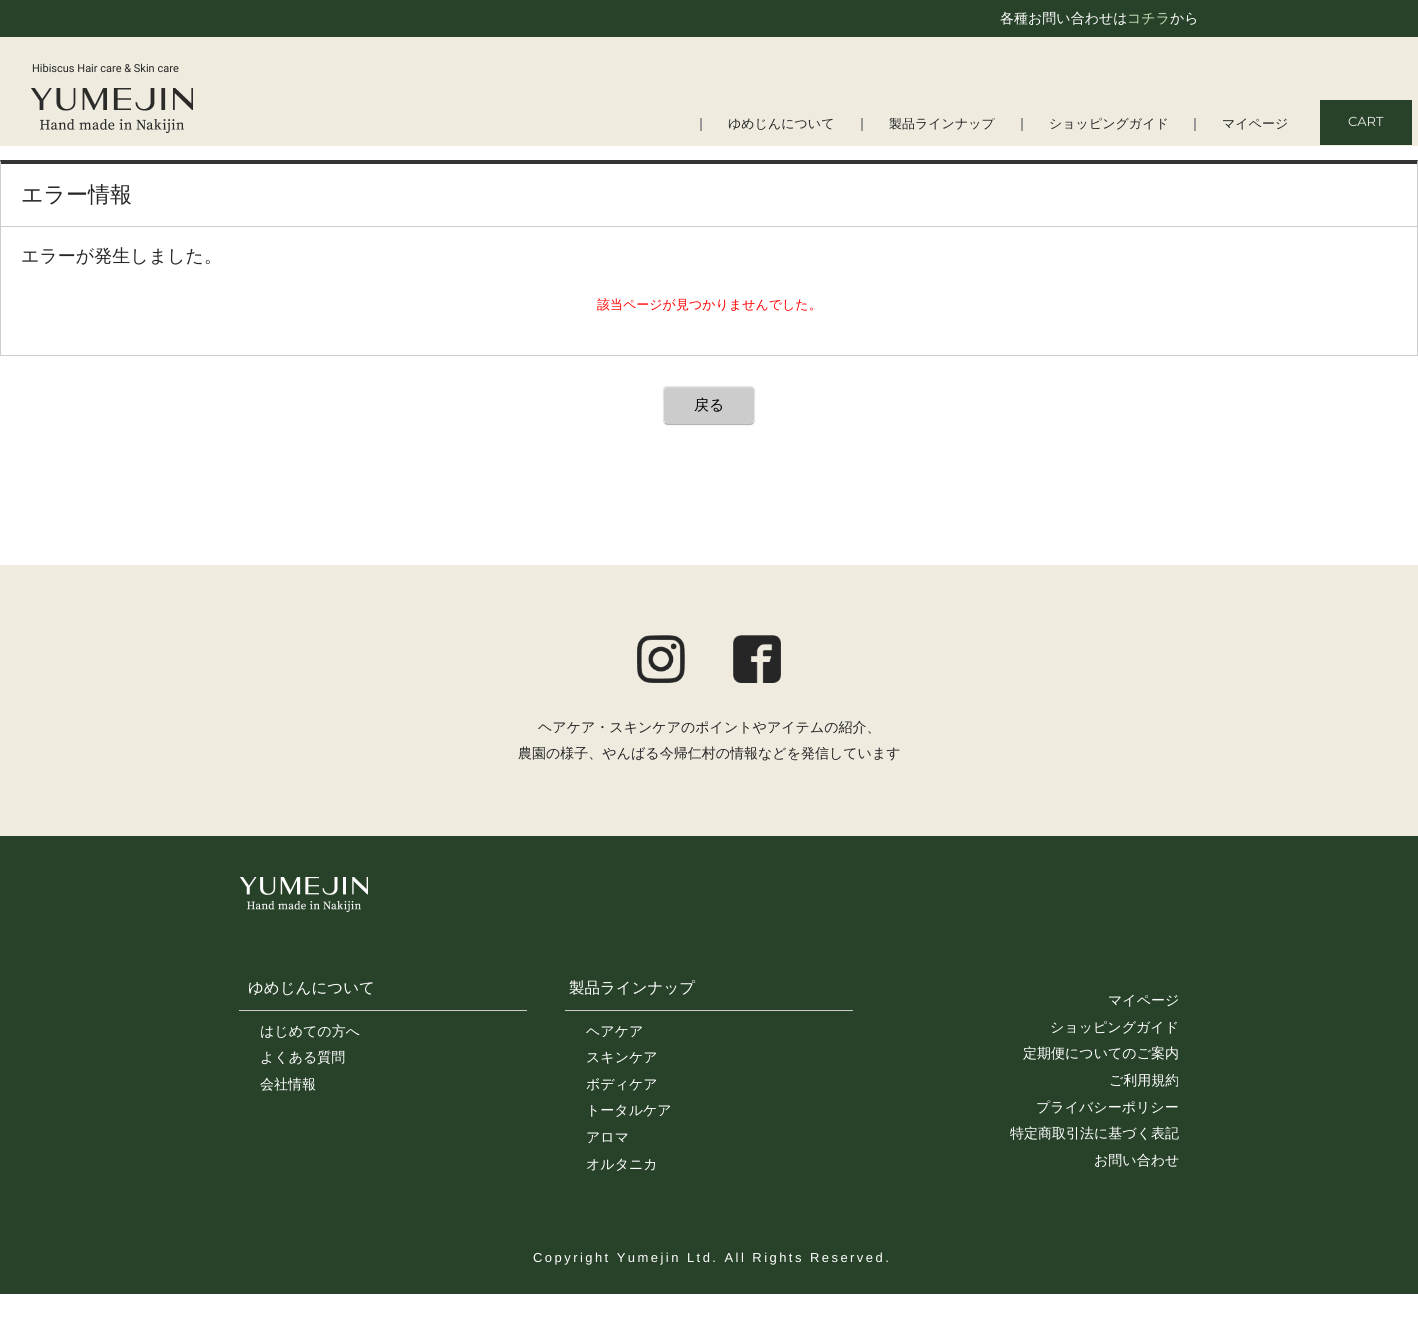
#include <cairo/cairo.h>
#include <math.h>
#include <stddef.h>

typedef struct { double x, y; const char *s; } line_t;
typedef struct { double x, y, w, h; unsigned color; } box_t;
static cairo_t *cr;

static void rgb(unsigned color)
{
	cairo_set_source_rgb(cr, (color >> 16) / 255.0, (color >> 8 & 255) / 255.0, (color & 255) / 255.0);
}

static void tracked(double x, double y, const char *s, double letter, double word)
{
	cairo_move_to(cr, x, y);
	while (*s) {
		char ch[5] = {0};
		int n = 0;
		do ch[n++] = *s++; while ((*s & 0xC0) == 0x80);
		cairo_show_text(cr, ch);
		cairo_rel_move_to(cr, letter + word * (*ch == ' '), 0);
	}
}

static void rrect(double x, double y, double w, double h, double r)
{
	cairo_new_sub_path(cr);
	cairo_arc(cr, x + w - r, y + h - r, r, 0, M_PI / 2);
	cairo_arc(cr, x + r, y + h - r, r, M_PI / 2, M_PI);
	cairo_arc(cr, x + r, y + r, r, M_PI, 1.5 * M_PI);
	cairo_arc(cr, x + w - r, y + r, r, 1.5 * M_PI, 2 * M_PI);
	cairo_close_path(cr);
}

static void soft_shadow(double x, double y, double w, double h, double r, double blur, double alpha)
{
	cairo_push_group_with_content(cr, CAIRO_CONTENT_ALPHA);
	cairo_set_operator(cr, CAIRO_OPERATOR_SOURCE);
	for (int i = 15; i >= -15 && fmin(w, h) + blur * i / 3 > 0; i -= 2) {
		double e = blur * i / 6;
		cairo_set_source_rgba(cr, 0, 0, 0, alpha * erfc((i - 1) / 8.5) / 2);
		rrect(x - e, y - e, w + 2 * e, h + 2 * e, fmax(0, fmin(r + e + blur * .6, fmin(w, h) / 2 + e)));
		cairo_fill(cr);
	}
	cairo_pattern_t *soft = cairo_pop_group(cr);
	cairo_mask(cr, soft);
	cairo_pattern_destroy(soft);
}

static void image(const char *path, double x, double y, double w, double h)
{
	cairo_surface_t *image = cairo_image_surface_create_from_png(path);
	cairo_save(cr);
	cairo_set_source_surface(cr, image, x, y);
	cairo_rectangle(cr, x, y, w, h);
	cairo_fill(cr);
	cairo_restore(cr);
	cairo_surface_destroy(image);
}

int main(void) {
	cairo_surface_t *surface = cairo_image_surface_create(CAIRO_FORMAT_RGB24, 1418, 1344);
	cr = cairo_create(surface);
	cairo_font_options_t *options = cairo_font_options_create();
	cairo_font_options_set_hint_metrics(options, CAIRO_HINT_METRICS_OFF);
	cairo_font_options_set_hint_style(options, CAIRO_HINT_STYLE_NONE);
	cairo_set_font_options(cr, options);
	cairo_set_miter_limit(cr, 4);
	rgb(0xffffff);
	cairo_paint(cr);
	rgb(0x28422a);
	cairo_rectangle(cr, 0, 0, 1418, 37);
	cairo_fill(cr);
	rgb(0xefebdf);
	cairo_rectangle(cr, 0, 37, 1418, 109);
	cairo_fill(cr);
	image("img/1.png", 31, 88, 162, 45);
	{
		static const box_t items[] = {
			{700, 118, 2, 13, 0x999999},
			{861, 118, 2, 13, 0x999999},
			{1021, 118, 2, 13, 0x999999},
			{1194, 118, 2, 13, 0x999999},
			{1320, 100, 92, 45, 0x28422a},
		};
		for (size_t i = 0; i < sizeof items / sizeof *items; i++) {
			rgb(items[i].color);
			cairo_rectangle(cr, items[i].x, items[i].y, items[i].w, items[i].h);
			cairo_fill(cr);
		}
	}
	rgb(0x333333);
	cairo_new_path(cr);
	cairo_move_to(cr, 0, 160);
	cairo_line_to(cr, 1418, 160);
	cairo_line_to(cr, 1417, 164);
	cairo_line_to(cr, 1, 164);
	cairo_close_path(cr);
	cairo_fill(cr);
	rgb(0xcccccc);
	cairo_new_path(cr);
	cairo_move_to(cr, 1418, 160);
	cairo_line_to(cr, 1418, 226);
	cairo_line_to(cr, 1417, 226);
	cairo_line_to(cr, 1417, 164);
	cairo_close_path(cr);
	cairo_fill(cr);
	cairo_new_path(cr);
	cairo_move_to(cr, 0, 226);
	cairo_line_to(cr, 0, 160);
	cairo_line_to(cr, 1, 164);
	cairo_line_to(cr, 1, 226);
	cairo_close_path(cr);
	cairo_fill(cr);
	cairo_rectangle(cr, 0.5, 226.5, 1417, 129);
	cairo_set_line_width(cr, 1);
	cairo_stroke(cr);
	rgb(0x000000);
	soft_shadow(663, 387, 92, 39, 5, 1, 0.05);
	rgb(0xcccccc);
	rrect(663, 386, 92, 39, 5);
	cairo_fill(cr);
	rgb(0xd6d6d6);
	cairo_new_path(cr);
	cairo_move_to(cr, 668, 388);
	cairo_line_to(cr, 750, 388);
	cairo_curve_to(cr, 752, 388, 754, 390, 754, 392);
	cairo_curve_to(cr, 754, 384, 741, 387, 736, 387);
	cairo_line_to(cr, 682, 387);
	cairo_curve_to(cr, 677, 387, 664, 384, 664, 392);
	cairo_curve_to(cr, 664, 390, 666, 388, 668, 388);
	cairo_close_path(cr);
	cairo_fill(cr);
	cairo_new_path(cr);
	cairo_move_to(cr, 753, 423);
	cairo_line_to(cr, 750.5, 424.5);
	cairo_line_to(cr, 667.5, 424.5);
	cairo_line_to(cr, 665, 423);
	rgb(0xb3b3b3);
	cairo_stroke(cr);
	cairo_new_path(cr);
	cairo_move_to(cr, 665, 423);
	cairo_curve_to(cr, 663, 421, 663.5, 417.5, 663.5, 415);
	cairo_line_to(cr, 663.5, 405.5);
	cairo_curve_to(cr, 663.5, 384.5, 660, 386.5, 681.5, 386.5);
	cairo_line_to(cr, 736.5, 386.5);
	cairo_curve_to(cr, 758, 386.5, 754.5, 384.5, 754.5, 405.5);
	cairo_line_to(cr, 754.5, 415);
	cairo_curve_to(cr, 754.5, 417.5, 755, 421, 753, 423);
	rgb(0xe6e6e6);
	cairo_stroke(cr);
	rgb(0xefebdf);
	cairo_rectangle(cr, 0, 565, 1418, 271);
	cairo_fill(cr);
	image("img/2.png", 637, 635, 48, 48);
	image("img/3.png", 733, 635, 48, 48);
	rgb(0x28422a);
	cairo_rectangle(cr, 0, 836, 1418, 458);
	cairo_fill(cr);
	image("img/4.png", 240, 877, 128, 35);
	rgb(0xcccccc);
	cairo_rectangle(cr, 239, 1010, 288, 1);
	cairo_fill(cr);
	cairo_rectangle(cr, 565, 1010, 288, 1);
	cairo_fill(cr);
	cairo_select_font_face(cr, "WenQuanYi Zen Hei Medium", CAIRO_FONT_SLANT_NORMAL, CAIRO_FONT_WEIGHT_NORMAL);
	cairo_set_font_size(cr, 14);
	rgb(0xffffff);
	cairo_move_to(cr, 1000, 23);
	cairo_show_text(cr, "各種お問い合わせは");
	rgb(0xc6ddb5);
	cairo_move_to(cr, 1127, 23);
	cairo_show_text(cr, "コチラ");
	rgb(0xffffff);
	cairo_move_to(cr, 1170, 23);
	cairo_show_text(cr, "から");
	cairo_select_font_face(cr, "Roboto", CAIRO_FONT_SLANT_NORMAL, CAIRO_FONT_WEIGHT_NORMAL);
	cairo_set_font_size(cr, 11);
	rgb(0x262626);
	cairo_move_to(cr, 32, 72);
	cairo_show_text(cr, "Hibiscus Hair care & Skin care");
	cairo_select_font_face(cr, "WenQuanYi Zen Hei Medium", CAIRO_FONT_SLANT_NORMAL, CAIRO_FONT_WEIGHT_NORMAL);
	cairo_set_font_size(cr, 13);
	cairo_move_to(cr, 728, 128);
	cairo_show_text(cr, "ゆめじんについて");
	cairo_save(cr);
	cairo_rectangle(cr, 869, 118, 146, 13);
	cairo_clip(cr);
	cairo_move_to(cr, 889, 128);
	cairo_show_text(cr, "製品ラインナップ");
	cairo_restore(cr);
	cairo_move_to(cr, 1049, 128);
	cairo_show_text(cr, "ショッピングガイド");
	cairo_move_to(cr, 1222, 128);
	cairo_show_text(cr, "マイページ");
	cairo_select_font_face(cr, "Montserrat", CAIRO_FONT_SLANT_NORMAL, CAIRO_FONT_WEIGHT_NORMAL);
	rgb(0xebebe9);
	cairo_move_to(cr, 1348, 126);
	cairo_show_text(cr, "CART");
	cairo_select_font_face(cr, "WenQuanYi Zen Hei Medium", CAIRO_FONT_SLANT_NORMAL, CAIRO_FONT_WEIGHT_NORMAL);
	cairo_set_font_size(cr, 22);
	rgb(0x262626);
	cairo_move_to(cr, 21, 202);
	cairo_show_text(cr, "エラー情報");
	cairo_set_font_size(cr, 18);
	cairo_move_to(cr, 21, 262);
	cairo_show_text(cr, "エラーが発生しました。");
	cairo_set_font_size(cr, 13);
	rgb(0xff0000);
	cairo_move_to(cr, 597, 309);
	cairo_show_text(cr, "該当ページが見つかりませんでした。");
	cairo_set_font_size(cr, 15);
	rgb(0x000000);
	cairo_move_to(cr, 694, 410);
	cairo_show_text(cr, "戻る");
	cairo_set_font_size(cr, 14);
	rgb(0x262626);
	cairo_move_to(cr, 538, 732);
	cairo_show_text(cr, "ヘアケア・スキンケアのポイントやアイテムの紹介、");
	cairo_move_to(cr, 518, 758);
	cairo_show_text(cr, "農園の様子、やんばる今帰仁村の情報などを発信しています");
	cairo_set_font_size(cr, 15.5);
	rgb(0xffffff);
	cairo_move_to(cr, 248, 993);
	cairo_show_text(cr, "ゆめじんについて");
	cairo_set_font_size(cr, 14);
	{
		static const line_t items[] = {
			{260, 1036, "はじめての方へ"},
			{260, 1062, "よくある質問"},
			{260, 1089, "会社情報"},
		};
		for (size_t i = 0; i < sizeof items / sizeof *items; i++) {
			cairo_move_to(cr, items[i].x, items[i].y);
			cairo_show_text(cr, items[i].s);
		}
	}
	cairo_set_font_size(cr, 15.5);
	cairo_move_to(cr, 569, 993);
	cairo_show_text(cr, "製品ラインナップ");
	cairo_set_font_size(cr, 14);
	{
		static const line_t items[] = {
			{586, 1036, "ヘアケア"},
			{586, 1062, "スキンケア"},
			{586, 1089, "ボディケア"},
			{586, 1115, "トータルケア"},
			{586, 1142, "アロマ"},
			{586, 1169, "オルタニカ"},
			{1108, 1005, "マイページ"},
			{1050, 1032, "ショッピングガイド"},
			{1023, 1058, "定期便についてのご案内"},
			{1109, 1085, "ご利用規約"},
			{1036, 1112, "プライバシーポリシー"},
			{1010, 1138, "特定商取引法に基づく表記"},
			{1094, 1165, "お問い合わせ"},
		};
		for (size_t i = 0; i < sizeof items / sizeof *items; i++) {
			cairo_move_to(cr, items[i].x, items[i].y);
			cairo_show_text(cr, items[i].s);
		}
	}
	cairo_select_font_face(cr, "Liberation Sans", CAIRO_FONT_SLANT_NORMAL, CAIRO_FONT_WEIGHT_NORMAL);
	cairo_set_font_size(cr, 13);
	tracked(533, 1262, "Copyright Yumejin Ltd. All Rights Reserved.", 2.45, 0);
	cairo_surface_write_to_png(surface, "page.png");
	cairo_font_options_destroy(options);
	cairo_destroy(cr);
	cairo_surface_destroy(surface);
	return 0;
}
